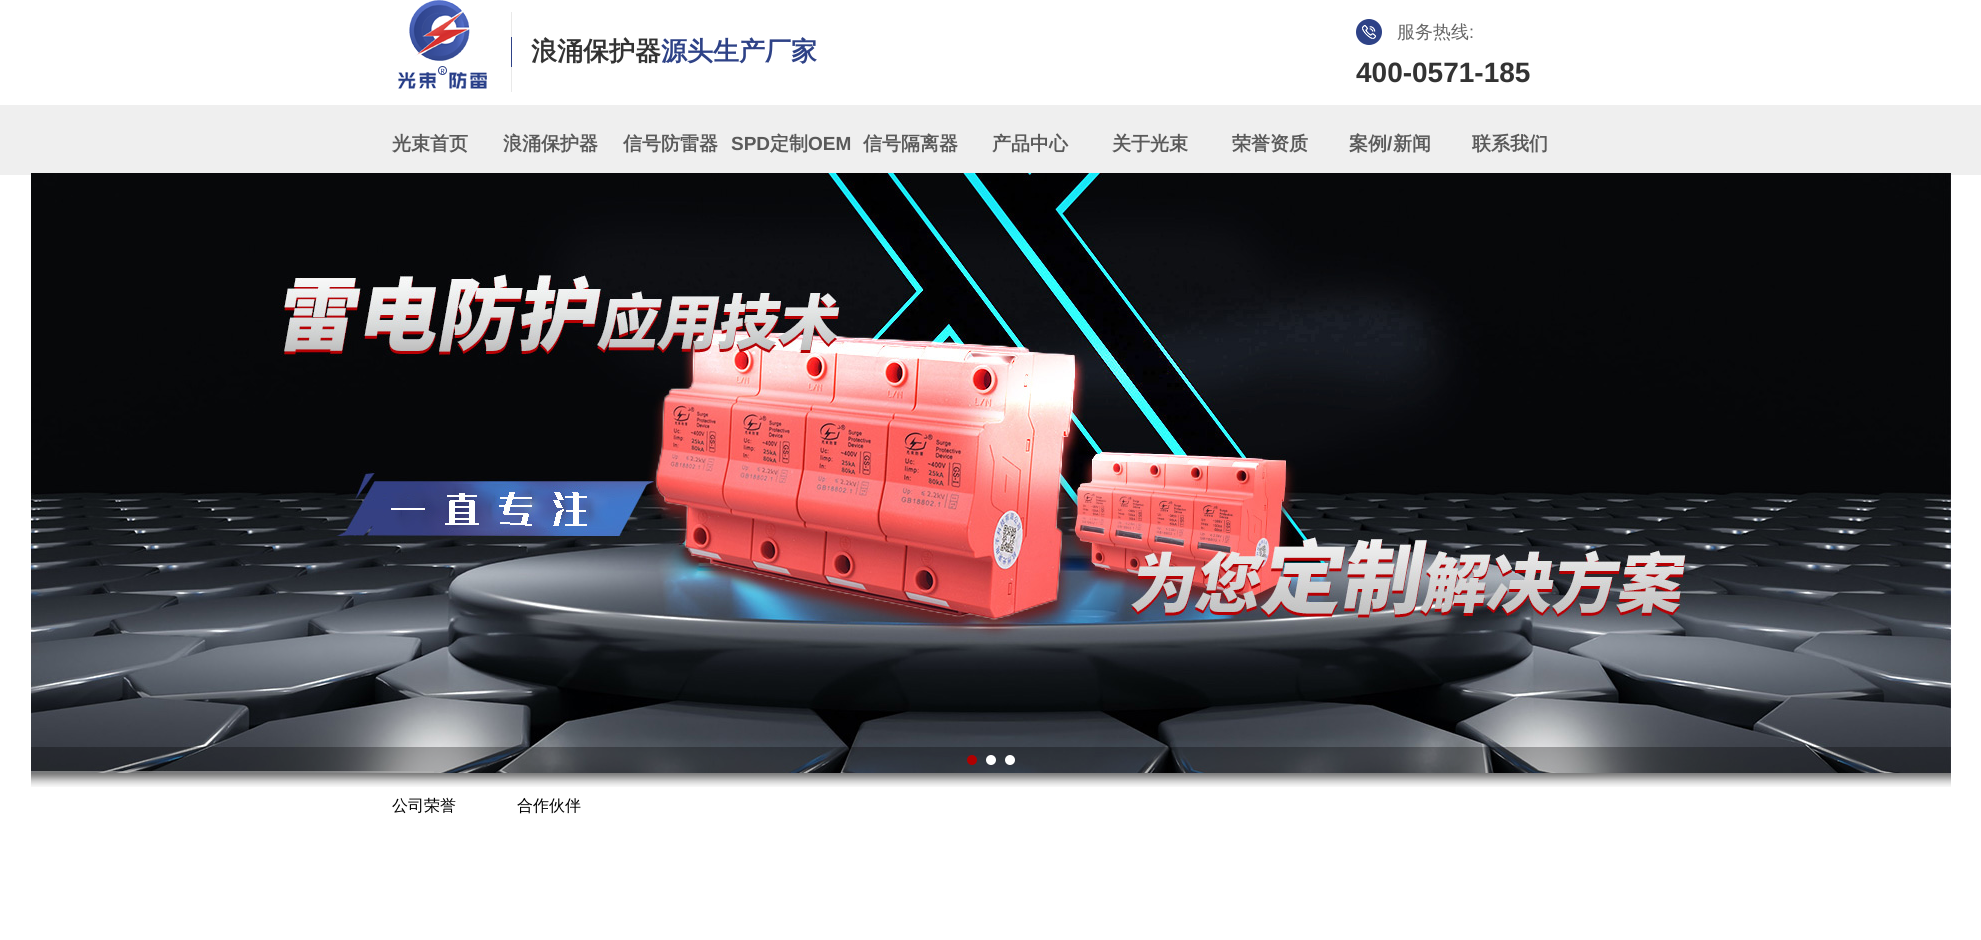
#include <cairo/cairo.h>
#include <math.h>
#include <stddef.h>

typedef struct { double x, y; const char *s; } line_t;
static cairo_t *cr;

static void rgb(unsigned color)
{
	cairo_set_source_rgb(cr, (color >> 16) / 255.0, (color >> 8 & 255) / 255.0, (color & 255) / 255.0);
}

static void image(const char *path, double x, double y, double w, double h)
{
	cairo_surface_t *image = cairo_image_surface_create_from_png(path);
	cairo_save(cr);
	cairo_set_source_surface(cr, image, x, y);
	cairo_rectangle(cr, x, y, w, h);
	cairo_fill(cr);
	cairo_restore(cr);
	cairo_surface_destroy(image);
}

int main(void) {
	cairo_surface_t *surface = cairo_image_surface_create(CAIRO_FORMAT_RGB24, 1981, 940);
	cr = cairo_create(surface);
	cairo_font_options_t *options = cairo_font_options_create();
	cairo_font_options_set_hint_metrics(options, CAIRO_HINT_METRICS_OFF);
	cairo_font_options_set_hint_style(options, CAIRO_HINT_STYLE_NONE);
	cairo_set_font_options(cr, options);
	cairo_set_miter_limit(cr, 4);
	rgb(0xffffff);
	cairo_paint(cr);
	image("img/1.png", 398, 0, 89, 89);
	image("img/2.png", 511, 12, 1, 80);
	image("img/3.png", 1356, 19, 26, 26);
	rgb(0xefefef);
	cairo_rectangle(cr, 0, 105, 1981, 70);
	cairo_fill(cr);
	image("img/4.png", 31, 173, 1920, 600);
	cairo_set_source_rgba(cr, 1, 1, 1, 0.6);
	cairo_rectangle(cr, 31, 771, 403, 2);
	cairo_fill(cr);
	cairo_set_source_rgba(cr, 0, 0, 0, 0.3);
	cairo_rectangle(cr, 31, 747, 1920, 26);
	cairo_fill(cr);
	image("img/5.png", 967, 755, 10, 10);
	image("img/6.png", 986, 755, 10, 10);
	image("img/7.png", 1005, 755, 10, 10);
	image("img/8.png", 31, 773, 1920, 14);
	cairo_select_font_face(cr, "WenQuanYi Zen Hei Medium", CAIRO_FONT_SLANT_NORMAL, CAIRO_FONT_WEIGHT_NORMAL);
	cairo_set_font_size(cr, 18);
	rgb(0x666666);
	cairo_move_to(cr, 1397, 38);
	cairo_show_text(cr, "服务热线");
	cairo_select_font_face(cr, "Liberation Sans", CAIRO_FONT_SLANT_NORMAL, CAIRO_FONT_WEIGHT_NORMAL);
	cairo_move_to(cr, 1469, 38);
	cairo_show_text(cr, ":");
	cairo_select_font_face(cr, "WenQuanYi Zen Hei", CAIRO_FONT_SLANT_NORMAL, CAIRO_FONT_WEIGHT_BOLD);
	cairo_set_font_size(cr, 26);
	rgb(0x333333);
	cairo_move_to(cr, 531, 60);
	cairo_show_text(cr, "浪涌保护器");
	rgb(0x2e4287);
	cairo_move_to(cr, 661, 60);
	cairo_show_text(cr, "源头生产厂家");
	cairo_save(cr);
	cairo_rectangle(cr, 1356, 57, 264, 45);
	cairo_clip(cr);
	cairo_select_font_face(cr, "Liberation Sans", CAIRO_FONT_SLANT_NORMAL, CAIRO_FONT_WEIGHT_BOLD);
	cairo_set_font_size(cr, 28);
	rgb(0x333333);
	cairo_move_to(cr, 1356, 82);
	cairo_show_text(cr, "400-0571-185");
	cairo_restore(cr);
	cairo_set_font_size(cr, 19);
	rgb(0x5a5a5a);
	{
		static const line_t items[] = {
			{392, 150, "光束首页"},
			{503, 150, "浪涌保护器"},
			{623, 150, "信号防雷器"},
		};
		for (size_t i = 0; i < sizeof items / sizeof *items; i++) {
			cairo_move_to(cr, items[i].x, items[i].y);
			cairo_show_text(cr, items[i].s);
		}
	}
	cairo_select_font_face(cr, "Liberation Sans", CAIRO_FONT_SLANT_NORMAL, CAIRO_FONT_WEIGHT_BOLD);
	cairo_move_to(cr, 731, 150);
	cairo_show_text(cr, "SPD");
	cairo_select_font_face(cr, "WenQuanYi Zen Hei", CAIRO_FONT_SLANT_NORMAL, CAIRO_FONT_WEIGHT_BOLD);
	cairo_move_to(cr, 770, 150);
	cairo_show_text(cr, "定制");
	cairo_select_font_face(cr, "Liberation Sans", CAIRO_FONT_SLANT_NORMAL, CAIRO_FONT_WEIGHT_BOLD);
	cairo_move_to(cr, 808, 150);
	cairo_show_text(cr, "OEM");
	cairo_select_font_face(cr, "WenQuanYi Zen Hei", CAIRO_FONT_SLANT_NORMAL, CAIRO_FONT_WEIGHT_BOLD);
	{
		static const line_t items[] = {
			{863, 150, "信号隔离器"},
			{992, 150, "产品中心"},
			{1112, 150, "关于光束"},
			{1232, 150, "荣誉资质"},
			{1349, 150, "案例"},
		};
		for (size_t i = 0; i < sizeof items / sizeof *items; i++) {
			cairo_move_to(cr, items[i].x, items[i].y);
			cairo_show_text(cr, items[i].s);
		}
	}
	cairo_select_font_face(cr, "Liberation Sans", CAIRO_FONT_SLANT_NORMAL, CAIRO_FONT_WEIGHT_BOLD);
	cairo_move_to(cr, 1387, 150);
	cairo_show_text(cr, "/");
	cairo_select_font_face(cr, "WenQuanYi Zen Hei", CAIRO_FONT_SLANT_NORMAL, CAIRO_FONT_WEIGHT_BOLD);
	cairo_move_to(cr, 1393, 150);
	cairo_show_text(cr, "新闻");
	cairo_move_to(cr, 1472, 150);
	cairo_show_text(cr, "联系我们");
	cairo_select_font_face(cr, "WenQuanYi Zen Hei Medium", CAIRO_FONT_SLANT_NORMAL, CAIRO_FONT_WEIGHT_NORMAL);
	cairo_set_font_size(cr, 16);
	rgb(0x000000);
	cairo_move_to(cr, 392, 811);
	cairo_show_text(cr, "公司荣誉");
	cairo_move_to(cr, 517, 811);
	cairo_show_text(cr, "合作伙伴");
	cairo_surface_write_to_png(surface, "page.png");
	cairo_font_options_destroy(options);
	cairo_destroy(cr);
	cairo_surface_destroy(surface);
	return 0;
}
